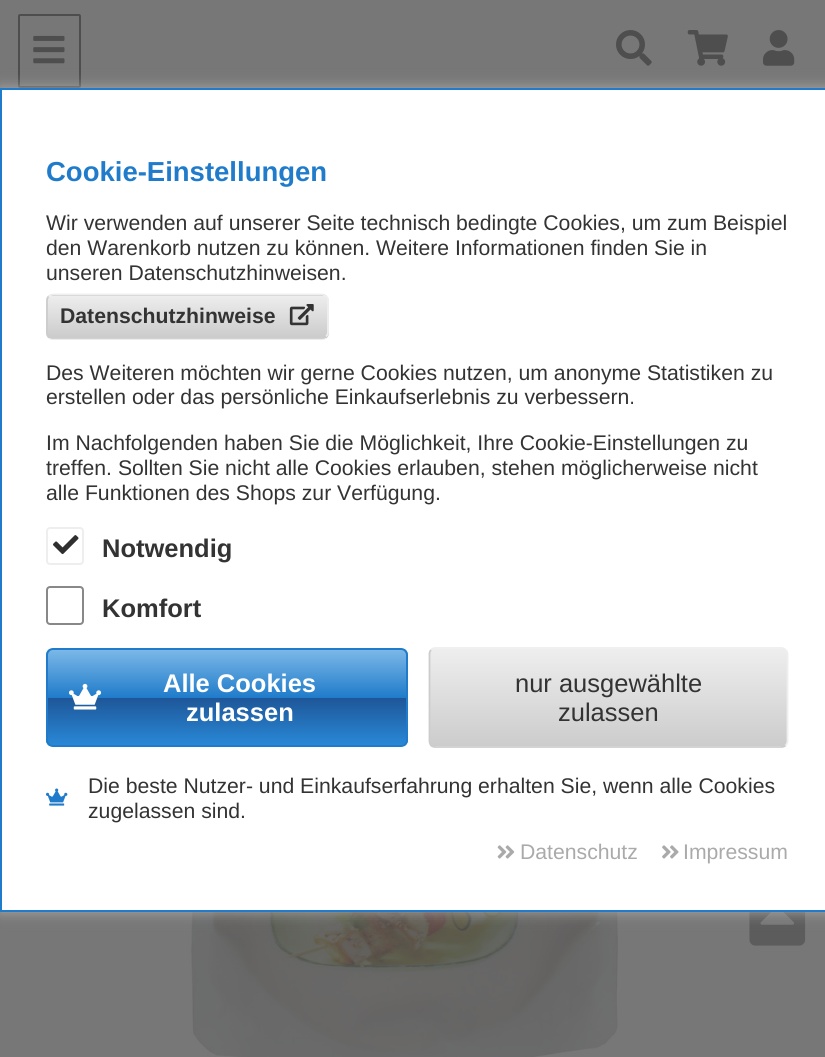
#include <cairo/cairo.h>
#include <math.h>
#include <stddef.h>

typedef struct { double x, y; const char *s; } line_t;
static cairo_t *cr;

static void rgb(unsigned color)
{
	cairo_set_source_rgb(cr, (color >> 16) / 255.0, (color >> 8 & 255) / 255.0, (color & 255) / 255.0);
}

static void rrect(double x, double y, double w, double h, double r)
{
	cairo_new_sub_path(cr);
	cairo_arc(cr, x + w - r, y + h - r, r, 0, M_PI / 2);
	cairo_arc(cr, x + r, y + h - r, r, M_PI / 2, M_PI);
	cairo_arc(cr, x + r, y + r, r, M_PI, 1.5 * M_PI);
	cairo_arc(cr, x + w - r, y + r, r, 1.5 * M_PI, 2 * M_PI);
	cairo_close_path(cr);
}

static void soft_shadow(double x, double y, double w, double h, double r, double blur, double alpha)
{
	cairo_push_group_with_content(cr, CAIRO_CONTENT_ALPHA);
	cairo_set_operator(cr, CAIRO_OPERATOR_SOURCE);
	for (int i = 15; i >= -15 && fmin(w, h) + blur * i / 3 > 0; i -= 2) {
		double e = blur * i / 6;
		cairo_set_source_rgba(cr, 0, 0, 0, alpha * erfc((i - 1) / 8.5) / 2);
		rrect(x - e, y - e, w + 2 * e, h + 2 * e, fmax(0, fmin(r + e + blur * .6, fmin(w, h) / 2 + e)));
		cairo_fill(cr);
	}
	cairo_pattern_t *soft = cairo_pop_group(cr);
	cairo_mask(cr, soft);
	cairo_pattern_destroy(soft);
}

static void image(const char *path, double x, double y, double w, double h)
{
	cairo_surface_t *image = cairo_image_surface_create_from_png(path);
	cairo_save(cr);
	cairo_set_source_surface(cr, image, x, y);
	cairo_rectangle(cr, x, y, w, h);
	cairo_fill(cr);
	cairo_restore(cr);
	cairo_surface_destroy(image);
}

int main(void) {
	cairo_surface_t *surface = cairo_image_surface_create(CAIRO_FORMAT_RGB24, 825, 1057);
	cr = cairo_create(surface);
	cairo_font_options_t *options = cairo_font_options_create();
	cairo_font_options_set_hint_metrics(options, CAIRO_HINT_METRICS_OFF);
	cairo_font_options_set_hint_style(options, CAIRO_HINT_STYLE_NONE);
	cairo_set_font_options(cr, options);
	cairo_set_miter_limit(cr, 4);
	cairo_pattern_t *gradient;
	rgb(0x777777);
	cairo_paint(cr);
	rrect(19, 15, 61, 72, 1);
	rgb(0x4e4e4e);
	cairo_stroke(cr);
	image("img/1.png", 33, 35, 32, 29);
	image("img/2.png", 616, 30, 36, 36);
	image("img/3.png", 687, 30, 41, 36);
	image("img/4.png", 763, 30, 32, 36);
	image("img/5.png", 176, 912, 473, 145);
	image("img/12.png", 749, 912, 57, 34);
	rgb(0xaaaaaa);
	soft_shadow(0, 88, 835, 824, 0, 7, 1);
	rgb(0xffffff);
	cairo_rectangle(cr, 1, 89, 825, 822);
	cairo_fill_preserve(cr);
	rgb(0x207cca);
	cairo_stroke(cr);
	cairo_save(cr);
	rrect(46, 294, 283, 46, 7);
	cairo_clip(cr);
	gradient = cairo_pattern_create_linear(187, 254, 187, 295);
	cairo_pattern_add_color_stop_rgba(gradient, 0, 0.933, 0.933, 0.933, 1);
	cairo_pattern_add_color_stop_rgba(gradient, 1, 0.8, 0.8, 0.8, 1);
	cairo_set_source(cr, gradient);
	cairo_pattern_destroy(gradient);
	cairo_rectangle(cr, 46, 294, 283, 2);
	cairo_fill(cr);
	gradient = cairo_pattern_create_linear(187, 295, 187, 337);
	cairo_pattern_add_color_stop_rgba(gradient, 0, 0.933, 0.933, 0.933, 1);
	cairo_pattern_add_color_stop_rgba(gradient, 1, 0.8, 0.8, 0.8, 1);
	cairo_set_source(cr, gradient);
	cairo_pattern_destroy(gradient);
	cairo_rectangle(cr, 46, 296, 283, 42);
	cairo_fill(cr);
	gradient = cairo_pattern_create_linear(187, 337, 187, 379);
	cairo_pattern_add_color_stop_rgba(gradient, 0, 0.933, 0.933, 0.933, 1);
	cairo_pattern_add_color_stop_rgba(gradient, 1, 0.8, 0.8, 0.8, 1);
	cairo_set_source(cr, gradient);
	cairo_pattern_destroy(gradient);
	cairo_rectangle(cr, 46, 338, 283, 2);
	cairo_fill(cr);
	cairo_restore(cr);
	cairo_new_path(cr);
	cairo_move_to(cr, 48.5, 296.5);
	cairo_curve_to(cr, 50, 295.5, 51.5, 294.5, 53, 294.5);
	cairo_line_to(cr, 322, 294.5);
	cairo_curve_to(cr, 323.5, 294.5, 325, 295.5, 326, 296.5);
	cairo_curve_to(cr, 327.5, 297.5, 328, 299, 328, 301);
	cairo_line_to(cr, 328, 332);
	cairo_curve_to(cr, 328, 333.5, 327.5, 335, 326, 336.5);
	rgb(0xeeeeee);
	cairo_set_line_width(cr, 1.8);
	cairo_stroke(cr);
	cairo_new_path(cr);
	cairo_move_to(cr, 326, 336.5);
	cairo_curve_to(cr, 325, 337.5, 323.5, 338, 322, 338);
	cairo_line_to(cr, 53, 338);
	cairo_curve_to(cr, 51.5, 338, 50, 337.5, 48.5, 336.5);
	cairo_curve_to(cr, 47.5, 335, 47, 333.5, 47, 332);
	cairo_line_to(cr, 47, 301);
	cairo_curve_to(cr, 47, 299, 47.5, 297.5, 48.5, 296.5);
	rgb(0xcccccc);
	cairo_stroke(cr);
	image("img/6.png", 289, 304, 25, 22);
	rrect(47, 528, 36, 36, 3);
	rgb(0xeeeeee);
	cairo_set_line_width(cr, 2);
	cairo_stroke(cr);
	image("img/7.png", 53, 535, 26, 20);
	rrect(47, 587, 36, 37, 3);
	rgb(0x888888);
	cairo_stroke(cr);
	cairo_save(cr);
	rrect(46, 648, 362, 99, 7);
	cairo_clip(cr);
	gradient = cairo_pattern_create_linear(227, 649, 227, 746);
	cairo_pattern_add_color_stop_rgba(gradient, 0, 0.49, 0.725, 0.91, 1);
	cairo_pattern_add_color_stop_rgba(gradient, 0.5, 0.125, 0.486, 0.792, 1);
	cairo_pattern_add_color_stop_rgba(gradient, 0.51, 0.118, 0.341, 0.6, 1);
	cairo_pattern_add_color_stop_rgba(gradient, 1, 0.161, 0.537, 0.847, 1);
	cairo_set_source(cr, gradient);
	cairo_pattern_destroy(gradient);
	cairo_rectangle(cr, 46, 649, 362, 97);
	cairo_fill(cr);
	cairo_restore(cr);
	rrect(47, 649, 360, 97, 6);
	rgb(0x207cca);
	cairo_stroke(cr);
	image("img/8.png", 69, 683, 33, 27);
	cairo_save(cr);
	rrect(429, 648, 359, 99, 7);
	cairo_clip(cr);
	gradient = cairo_pattern_create_linear(608, 649, 608, 746);
	cairo_pattern_add_color_stop_rgba(gradient, 0, 0.933, 0.933, 0.933, 1);
	cairo_pattern_add_color_stop_rgba(gradient, 1, 0.8, 0.8, 0.8, 1);
	cairo_set_source(cr, gradient);
	cairo_pattern_destroy(gradient);
	cairo_rectangle(cr, 429, 649, 359, 97);
	cairo_fill(cr);
	cairo_restore(cr);
	cairo_new_path(cr);
	cairo_move_to(cr, 431, 650);
	cairo_curve_to(cr, 432, 648.5, 434, 648, 435.5, 648);
	cairo_line_to(cr, 781, 648);
	cairo_curve_to(cr, 783, 648, 784.5, 648.5, 785.5, 650);
	cairo_curve_to(cr, 787, 651, 787.5, 652.5, 787.5, 654);
	cairo_line_to(cr, 787.5, 741);
	cairo_curve_to(cr, 787.5, 742.5, 787, 744, 785.5, 745.5);
	rgb(0xeeeeee);
	cairo_set_line_width(cr, 1.8);
	cairo_stroke(cr);
	cairo_new_path(cr);
	cairo_move_to(cr, 785.5, 745.5);
	cairo_curve_to(cr, 784.5, 746.5, 783, 747, 781, 747);
	cairo_line_to(cr, 435.5, 747);
	cairo_curve_to(cr, 434, 747, 432, 746.5, 431, 745.5);
	cairo_curve_to(cr, 430, 744, 429.5, 742.5, 429.5, 741);
	cairo_line_to(cr, 429.5, 654);
	cairo_curve_to(cr, 429.5, 652.5, 430, 651, 431, 650);
	rgb(0xcccccc);
	cairo_stroke(cr);
	image("img/9.png", 46, 788, 22, 18);
	image("img/10.png", 497, 845, 18, 14);
	image("img/11.png", 662, 845, 17, 14);
	cairo_select_font_face(cr, "Liberation Sans", CAIRO_FONT_SLANT_NORMAL, CAIRO_FONT_WEIGHT_BOLD);
	cairo_set_font_size(cr, 27.5);
	rgb(0x207cca);
	cairo_move_to(cr, 46, 181);
	cairo_show_text(cr, "Cookie-Einstellungen");
	cairo_select_font_face(cr, "Liberation Sans", CAIRO_FONT_SLANT_NORMAL, CAIRO_FONT_WEIGHT_NORMAL);
	cairo_set_font_size(cr, 21.2);
	rgb(0x333333);
	{
		static const line_t items[] = {
			{46, 230, "Wir verwenden auf unserer Seite technisch bedingte Cookies, um zum Beispiel"},
			{46, 255, "den Warenkorb nutzen zu können. Weitere Informationen finden Sie in"},
			{46, 280, "unseren Datenschutzhinweisen."},
		};
		for (size_t i = 0; i < sizeof items / sizeof *items; i++) {
			cairo_move_to(cr, items[i].x, items[i].y);
			cairo_show_text(cr, items[i].s);
		}
	}
	cairo_select_font_face(cr, "Liberation Sans", CAIRO_FONT_SLANT_NORMAL, CAIRO_FONT_WEIGHT_BOLD);
	cairo_move_to(cr, 60, 323);
	cairo_show_text(cr, "Datenschutzhinweise");
	cairo_select_font_face(cr, "Liberation Sans", CAIRO_FONT_SLANT_NORMAL, CAIRO_FONT_WEIGHT_NORMAL);
	{
		static const line_t items[] = {
			{46, 380, "Des Weiteren möchten wir gerne Cookies nutzen, um anonyme Statistiken zu"},
			{46, 404, "erstellen oder das persönliche Einkaufserlebnis zu verbessern."},
			{46, 450, "Im Nachfolgenden haben Sie die Möglichkeit, Ihre Cookie-Einstellungen zu"},
			{46, 475, "treffen. Sollten Sie nicht alle Cookies erlauben, stehen möglicherweise nicht"},
			{46, 500, "alle Funktionen des Shops zur Verfügung."},
		};
		for (size_t i = 0; i < sizeof items / sizeof *items; i++) {
			cairo_move_to(cr, items[i].x, items[i].y);
			cairo_show_text(cr, items[i].s);
		}
	}
	cairo_select_font_face(cr, "Liberation Sans", CAIRO_FONT_SLANT_NORMAL, CAIRO_FONT_WEIGHT_BOLD);
	cairo_set_font_size(cr, 25.5);
	cairo_move_to(cr, 102, 557);
	cairo_show_text(cr, "Notwendig");
	cairo_move_to(cr, 102, 617);
	cairo_show_text(cr, "Komfort");
	rgb(0xffffff);
	cairo_move_to(cr, 163, 692);
	cairo_show_text(cr, "Alle Cookies");
	cairo_move_to(cr, 186, 721);
	cairo_show_text(cr, "zulassen");
	cairo_select_font_face(cr, "Liberation Sans", CAIRO_FONT_SLANT_NORMAL, CAIRO_FONT_WEIGHT_NORMAL);
	rgb(0x333333);
	cairo_move_to(cr, 515, 692);
	cairo_show_text(cr, "nur ausgewählte");
	cairo_move_to(cr, 558, 721);
	cairo_show_text(cr, "zulassen");
	cairo_set_font_size(cr, 21.2);
	cairo_move_to(cr, 88, 793);
	cairo_show_text(cr, "Die beste Nutzer- und Einkaufserfahrung erhalten Sie, wenn alle Cookies");
	cairo_move_to(cr, 88, 818);
	cairo_show_text(cr, "zugelassen sind.");
	rgb(0xaaaaaa);
	cairo_move_to(cr, 520, 859);
	cairo_show_text(cr, "Datenschutz");
	cairo_move_to(cr, 683, 859);
	cairo_show_text(cr, "Impressum");
	cairo_surface_write_to_png(surface, "page.png");
	cairo_font_options_destroy(options);
	cairo_destroy(cr);
	cairo_surface_destroy(surface);
	return 0;
}
